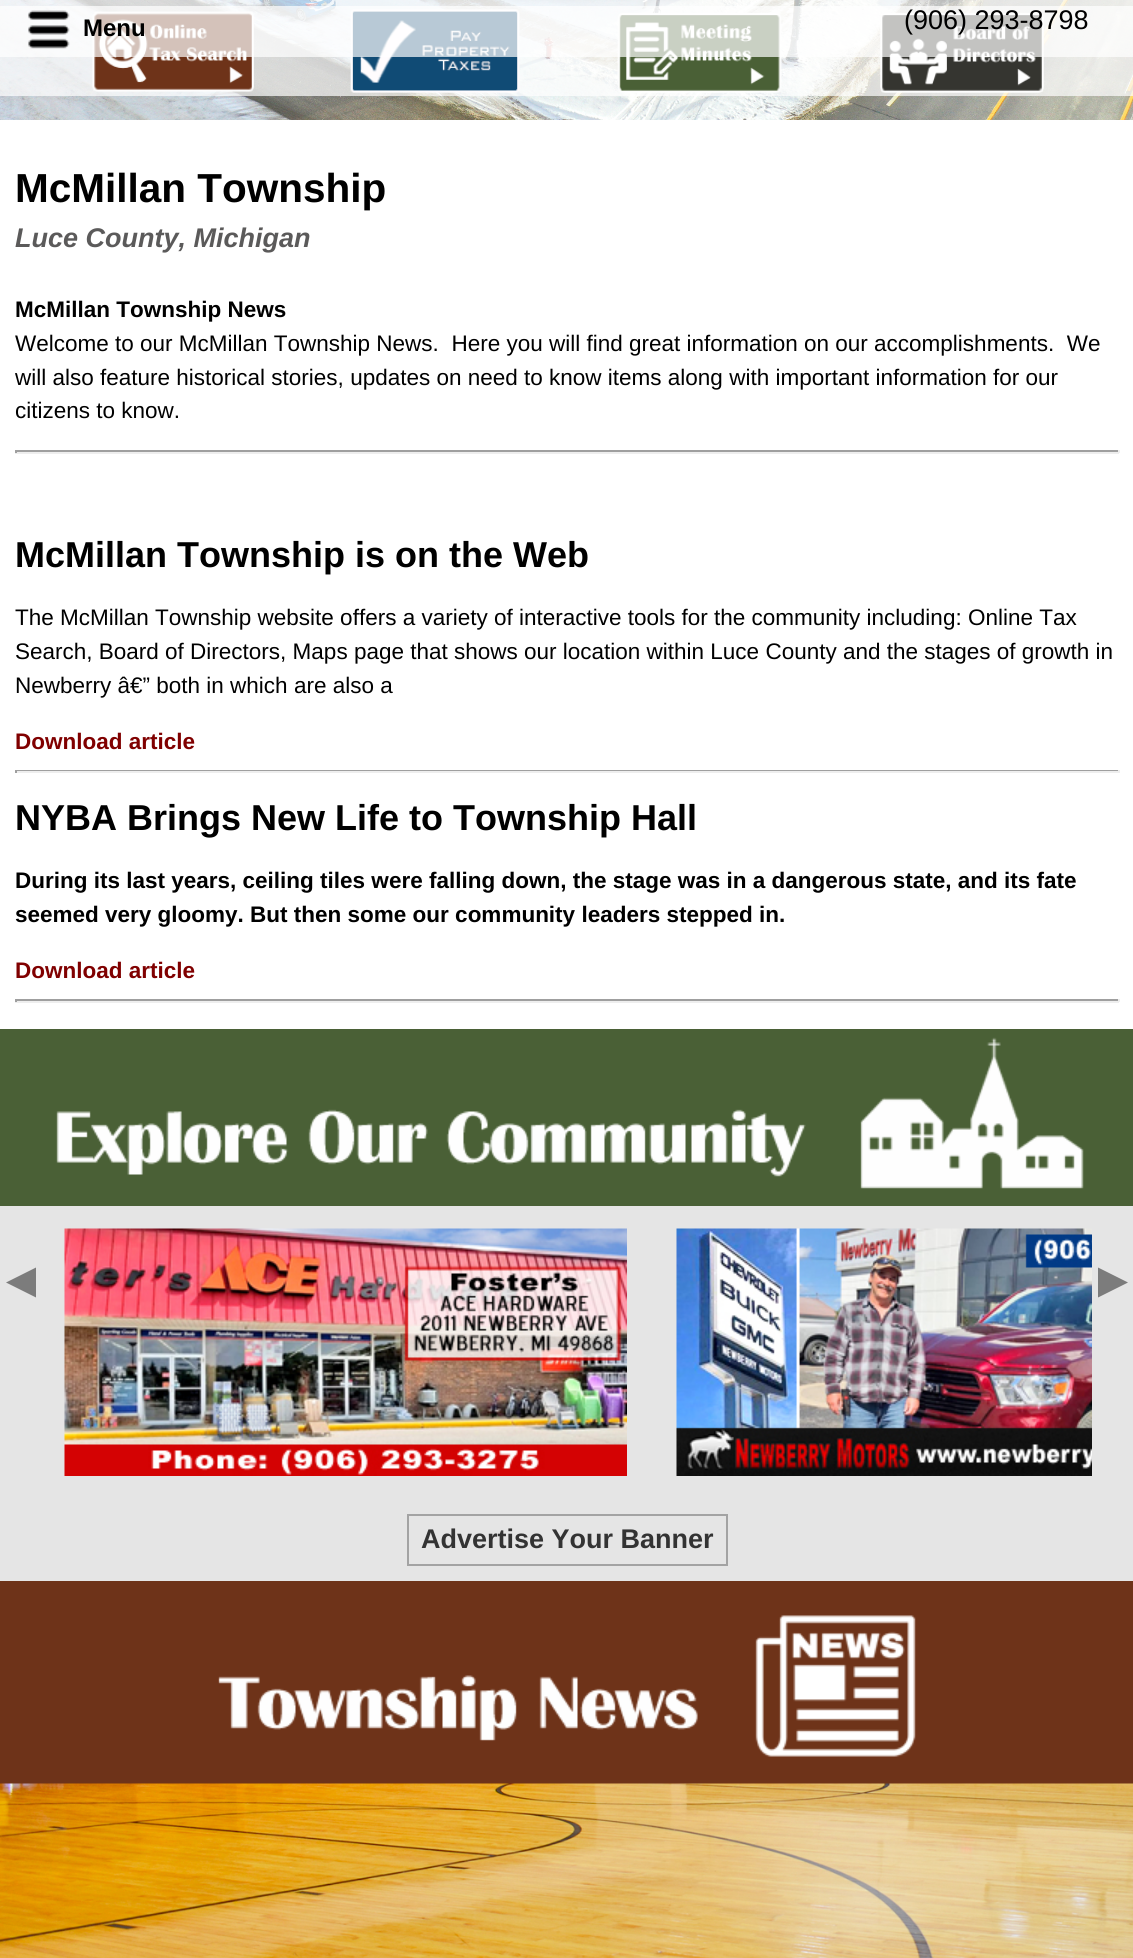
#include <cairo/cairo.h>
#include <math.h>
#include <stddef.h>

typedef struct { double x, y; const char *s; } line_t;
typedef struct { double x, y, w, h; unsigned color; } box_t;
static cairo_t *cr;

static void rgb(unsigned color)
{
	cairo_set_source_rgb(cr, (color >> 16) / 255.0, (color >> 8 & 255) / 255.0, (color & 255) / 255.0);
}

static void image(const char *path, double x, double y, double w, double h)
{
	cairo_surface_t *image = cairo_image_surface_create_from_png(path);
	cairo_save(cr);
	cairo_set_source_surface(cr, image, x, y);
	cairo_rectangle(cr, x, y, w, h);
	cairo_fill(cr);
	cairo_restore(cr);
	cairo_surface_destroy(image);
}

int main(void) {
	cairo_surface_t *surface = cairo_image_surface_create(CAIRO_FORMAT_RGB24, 1133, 1958);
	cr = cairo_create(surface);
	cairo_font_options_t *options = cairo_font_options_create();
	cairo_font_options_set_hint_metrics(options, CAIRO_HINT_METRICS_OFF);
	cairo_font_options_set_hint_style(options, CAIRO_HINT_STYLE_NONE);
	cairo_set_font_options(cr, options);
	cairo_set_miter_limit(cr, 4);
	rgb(0xffffff);
	cairo_paint(cr);
	image("img/1.png", 0, 0, 1133, 120);
	image("img/2.png", 419, 0, 280, 9);
	cairo_set_source_rgba(cr, 1, 1, 1, 0.7);
	cairo_rectangle(cr, 0, 6, 1133, 90);
	cairo_fill(cr);
	image("img/3.png", 92, 11, 162, 81);
	image("img/4.png", 350, 9, 170, 84);
	image("img/5.png", 617, 12, 165, 81);
	image("img/6.png", 880, 12, 164, 81);
	cairo_rectangle(cr, 0, 0, 1133, 57);
	cairo_fill(cr);
	image("img/7.png", 28, 10, 42, 39);
	{
		static const box_t items[] = {
			{15, 450, 1104, 2, 0x9f9f9f},
			{1118, 450, 2, 3, 0xeeeeee},
			{15, 452, 1104, 2, 0xeeeeee},
			{15, 450, 2, 3, 0x9f9f9f},
			{15, 770, 1104, 1, 0x9f9f9f},
			{1118, 770, 2, 3, 0xeeeeee},
			{15, 771, 1104, 2, 0xeeeeee},
			{15, 770, 2, 3, 0x9f9f9f},
			{15, 999, 1104, 2, 0x9f9f9f},
			{1118, 999, 2, 3, 0xeeeeee},
			{15, 1001, 1104, 2, 0xeeeeee},
			{15, 999, 2, 3, 0x9f9f9f},
			{0, 1029, 1133, 177, 0x4a6036},
		};
		for (size_t i = 0; i < sizeof items / sizeof *items; i++) {
			rgb(items[i].color);
			cairo_rectangle(cr, items[i].x, items[i].y, items[i].w, items[i].h);
			cairo_fill(cr);
		}
	}
	image("img/8.png", 56, 1037, 1028, 152);
	rgb(0xe5e5e5);
	cairo_rectangle(cr, 0, 1206, 1133, 375);
	cairo_fill(cr);
	rgb(0x7c7c7c);
	cairo_new_path(cr);
	cairo_move_to(cr, 36, 1267.5);
	cairo_line_to(cr, 36, 1297.5);
	cairo_line_to(cr, 6, 1282.5);
	cairo_close_path(cr);
	cairo_fill(cr);
	image("img/9.png", 64, 1228, 563, 248);
	image("img/10.png", 676, 1228, 416, 248);
	cairo_new_path(cr);
	cairo_move_to(cr, 1098, 1297.5);
	cairo_line_to(cr, 1098, 1267.5);
	cairo_line_to(cr, 1128, 1282.5);
	cairo_close_path(cr);
	cairo_fill(cr);
	cairo_rectangle(cr, 408, 1515, 319, 50);
	rgb(0xa3a3a3);
	cairo_stroke(cr);
	rgb(0x6e3319);
	cairo_rectangle(cr, 0, 1581, 1133, 203);
	cairo_fill(cr);
	image("img/11.png", 218, 1615, 698, 142);
	image("img/12.png", 0, 1783, 1133, 175);
	cairo_select_font_face(cr, "Liberation Sans", CAIRO_FONT_SLANT_NORMAL, CAIRO_FONT_WEIGHT_BOLD);
	cairo_set_font_size(cr, 24);
	rgb(0x000000);
	cairo_move_to(cr, 83, 36);
	cairo_show_text(cr, "Menu");
	cairo_select_font_face(cr, "Liberation Sans", CAIRO_FONT_SLANT_NORMAL, CAIRO_FONT_WEIGHT_NORMAL);
	cairo_set_font_size(cr, 27);
	cairo_move_to(cr, 904, 29);
	cairo_show_text(cr, "(906) 293-8798");
	cairo_select_font_face(cr, "Liberation Sans", CAIRO_FONT_SLANT_NORMAL, CAIRO_FONT_WEIGHT_BOLD);
	cairo_set_font_size(cr, 40.5);
	cairo_move_to(cr, 15, 202);
	cairo_show_text(cr, "McMillan Township");
	cairo_select_font_face(cr, "Liberation Sans", CAIRO_FONT_SLANT_ITALIC, CAIRO_FONT_WEIGHT_BOLD);
	cairo_set_font_size(cr, 27);
	rgb(0x5b5a5a);
	cairo_move_to(cr, 15, 247);
	cairo_show_text(cr, "Luce County, Michigan");
	cairo_select_font_face(cr, "Liberation Sans", CAIRO_FONT_SLANT_NORMAL, CAIRO_FONT_WEIGHT_BOLD);
	cairo_set_font_size(cr, 22.5);
	rgb(0x000000);
	cairo_move_to(cr, 15, 317);
	cairo_show_text(cr, "McMillan Township News");
	cairo_select_font_face(cr, "Liberation Sans", CAIRO_FONT_SLANT_NORMAL, CAIRO_FONT_WEIGHT_NORMAL);
	{
		static const line_t items[] = {
			{15, 351, "Welcome to our McMillan Township News.  Here you will find great information on our accomplishments.  We"},
			{15, 385, "will also feature historical stories, updates on need to know items along with important information for our"},
			{15, 418, "citizens to know."},
		};
		for (size_t i = 0; i < sizeof items / sizeof *items; i++) {
			cairo_move_to(cr, items[i].x, items[i].y);
			cairo_show_text(cr, items[i].s);
		}
	}
	cairo_select_font_face(cr, "Liberation Sans", CAIRO_FONT_SLANT_NORMAL, CAIRO_FONT_WEIGHT_BOLD);
	cairo_set_font_size(cr, 36);
	cairo_move_to(cr, 15, 567);
	cairo_show_text(cr, "McMillan Township is on the Web");
	cairo_select_font_face(cr, "Liberation Sans", CAIRO_FONT_SLANT_NORMAL, CAIRO_FONT_WEIGHT_NORMAL);
	cairo_set_font_size(cr, 22.5);
	{
		static const line_t items[] = {
			{15, 625, "The McMillan Township website offers a variety of interactive tools for the community including: Online Tax"},
			{15, 659, "Search, Board of Directors, Maps page that shows our location within Luce County and the stages of growth in"},
			{15, 693, "Newberry â€” both in which are also a"},
		};
		for (size_t i = 0; i < sizeof items / sizeof *items; i++) {
			cairo_move_to(cr, items[i].x, items[i].y);
			cairo_show_text(cr, items[i].s);
		}
	}
	cairo_select_font_face(cr, "Liberation Sans", CAIRO_FONT_SLANT_NORMAL, CAIRO_FONT_WEIGHT_BOLD);
	rgb(0x800000);
	cairo_move_to(cr, 15, 749);
	cairo_show_text(cr, "Download article");
	cairo_set_font_size(cr, 36);
	rgb(0x000000);
	cairo_move_to(cr, 15, 830);
	cairo_show_text(cr, "NYBA Brings New Life to Township Hall");
	cairo_set_font_size(cr, 22.5);
	cairo_move_to(cr, 15, 888);
	cairo_show_text(cr, "During its last years, ceiling tiles were falling down, the stage was in a dangerous state, and its fate");
	cairo_move_to(cr, 15, 922);
	cairo_show_text(cr, "seemed very gloomy. But then some our community leaders stepped in.");
	rgb(0x800000);
	cairo_move_to(cr, 15, 978);
	cairo_show_text(cr, "Download article");
	cairo_set_font_size(cr, 27);
	rgb(0x333333);
	cairo_move_to(cr, 421, 1548);
	cairo_show_text(cr, "Advertise Your Banner");
	cairo_surface_write_to_png(surface, "page.png");
	cairo_font_options_destroy(options);
	cairo_destroy(cr);
	cairo_surface_destroy(surface);
	return 0;
}
